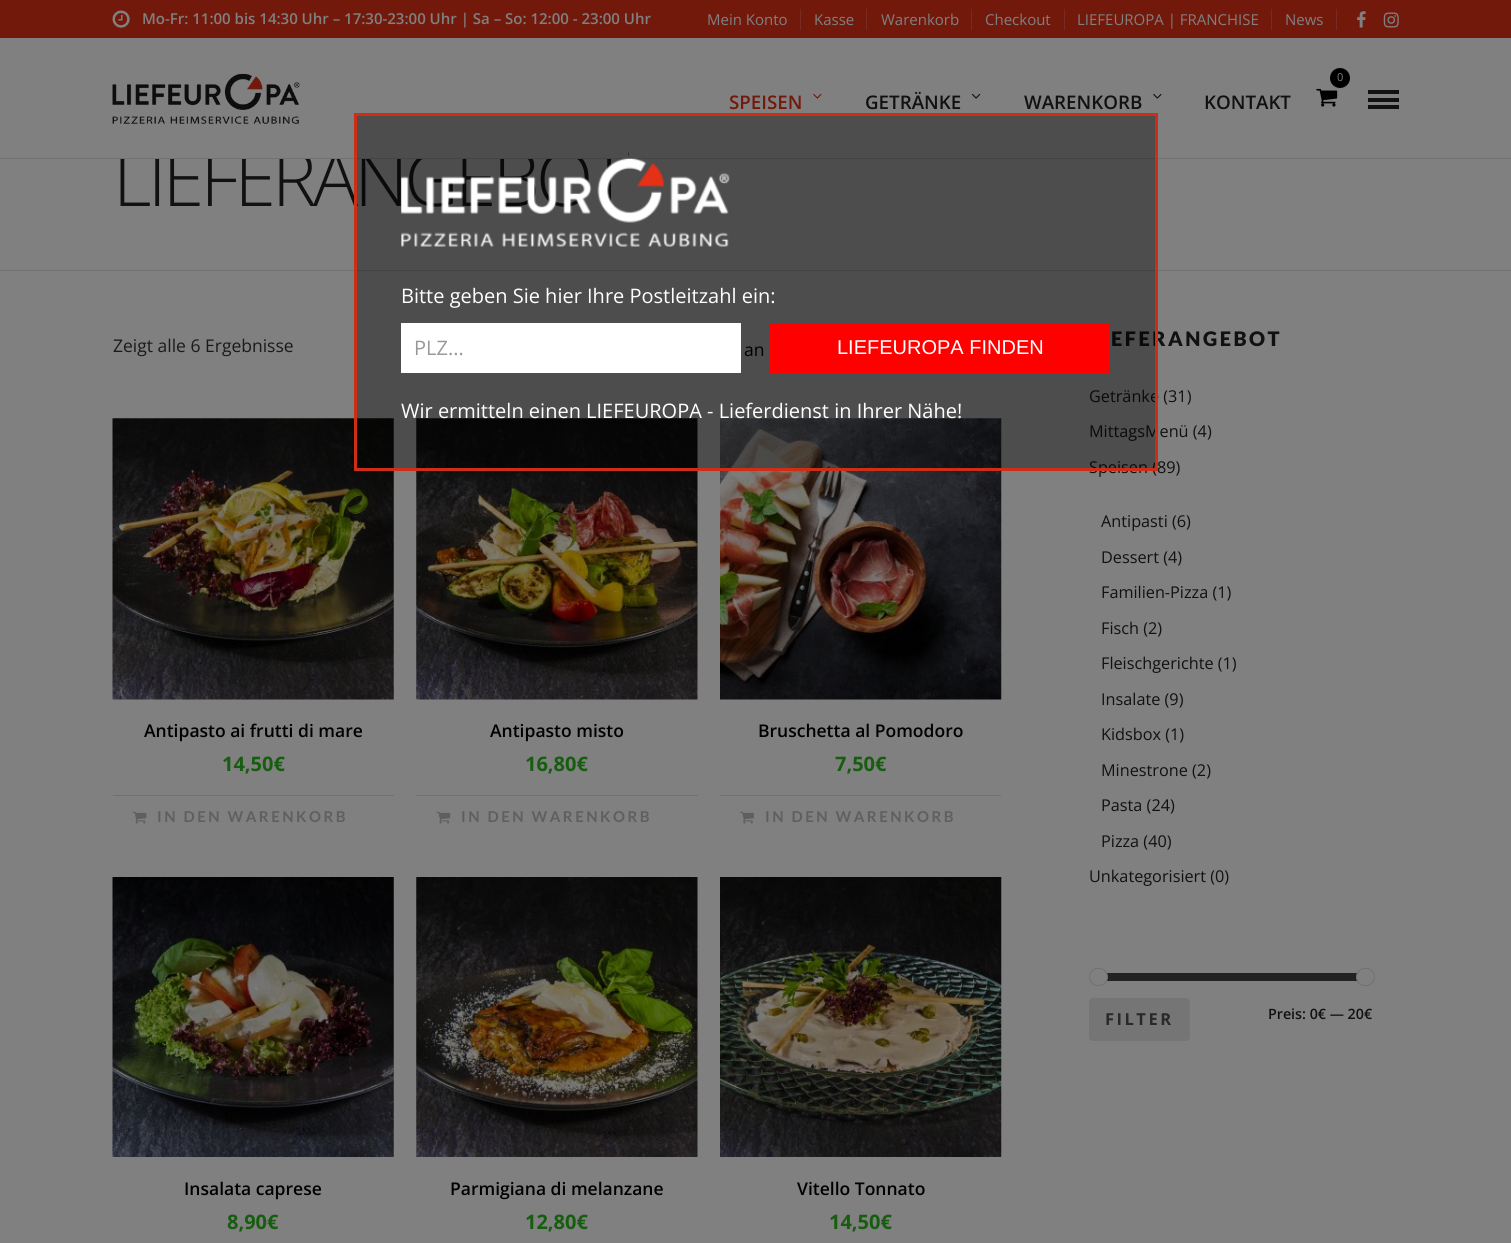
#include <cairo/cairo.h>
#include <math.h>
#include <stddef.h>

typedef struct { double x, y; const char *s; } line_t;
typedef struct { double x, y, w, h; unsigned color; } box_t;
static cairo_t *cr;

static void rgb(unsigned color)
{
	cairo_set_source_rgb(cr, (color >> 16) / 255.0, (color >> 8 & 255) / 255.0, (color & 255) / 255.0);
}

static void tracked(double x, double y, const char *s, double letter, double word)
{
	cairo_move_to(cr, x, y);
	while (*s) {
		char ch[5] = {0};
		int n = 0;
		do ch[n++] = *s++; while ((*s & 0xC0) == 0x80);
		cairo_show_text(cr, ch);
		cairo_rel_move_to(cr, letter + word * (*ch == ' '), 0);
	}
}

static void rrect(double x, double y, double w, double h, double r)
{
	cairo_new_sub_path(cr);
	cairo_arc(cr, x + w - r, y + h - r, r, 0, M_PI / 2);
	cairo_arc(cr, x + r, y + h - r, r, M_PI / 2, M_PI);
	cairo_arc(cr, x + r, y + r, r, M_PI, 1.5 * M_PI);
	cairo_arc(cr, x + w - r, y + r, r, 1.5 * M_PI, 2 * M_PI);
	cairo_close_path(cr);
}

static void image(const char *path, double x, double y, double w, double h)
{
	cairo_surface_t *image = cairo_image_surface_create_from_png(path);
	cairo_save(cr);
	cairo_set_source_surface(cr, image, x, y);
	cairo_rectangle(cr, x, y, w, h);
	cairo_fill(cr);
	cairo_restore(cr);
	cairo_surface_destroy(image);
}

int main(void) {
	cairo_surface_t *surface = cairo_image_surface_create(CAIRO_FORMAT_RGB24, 1511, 1243);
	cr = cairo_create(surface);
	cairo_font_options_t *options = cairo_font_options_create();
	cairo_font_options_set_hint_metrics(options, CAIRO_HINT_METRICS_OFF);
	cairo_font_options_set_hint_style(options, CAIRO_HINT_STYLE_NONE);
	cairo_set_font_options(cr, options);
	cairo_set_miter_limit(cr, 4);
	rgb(0x808080);
	cairo_paint(cr);
	rgb(0x72190c);
	cairo_rectangle(cr, 0, 0, 1511, 38);
	cairo_fill(cr);
	image("img/1.png", 112, 10, 18, 18);
	{
		static const box_t items[] = {
			{800, 9, 1, 21, 0x752d23},
			{866, 9, 1, 21, 0x752d23},
			{971, 9, 1, 21, 0x752d23},
			{1064, 9, 1, 21, 0x752d23},
			{1271, 9, 1, 21, 0x752d23},
			{1336, 9, 1, 21, 0x752d23},
		};
		for (size_t i = 0; i < sizeof items / sizeof *items; i++) {
			rgb(items[i].color);
			cairo_rectangle(cr, items[i].x, items[i].y, items[i].w, items[i].h);
			cairo_fill(cr);
		}
	}
	image("img/2.png", 1357, 11, 9, 17);
	image("img/3.png", 1383, 12, 16, 16);
	image("img/4.png", 112, 73, 188, 51);
	image("img/5.png", 813, 93, 9, 6);
	image("img/6.png", 971, 93, 10, 6);
	image("img/7.png", 1153, 93, 9, 6);
	rgb(0x000000);
	cairo_arc(cr, 1340, 78, 10, 0, 2 * M_PI);
	cairo_fill(cr);
	image("img/8.png", 1316, 88, 22, 19);
	{
		static const box_t items[] = {
			{1368, 90, 31, 4, 0x111111},
			{1368, 98, 31, 4, 0x111111},
			{1368, 105, 31, 4, 0x111111},
			{0, 270, 1511, 1, 0x717171},
		};
		for (size_t i = 0; i < sizeof items / sizeof *items; i++) {
			rgb(items[i].color);
			cairo_rectangle(cr, items[i].x, items[i].y, items[i].w, items[i].h);
			cairo_fill(cr);
		}
	}
	image("img/9.png", 112, 418, 282, 282);
	cairo_rectangle(cr, 113, 795, 281, 1);
	cairo_fill(cr);
	image("img/10.png", 132, 811, 15, 13);
	image("img/11.png", 416, 418, 282, 282);
	cairo_rectangle(cr, 416, 795, 282, 1);
	cairo_fill(cr);
	image("img/12.png", 436, 811, 15, 13);
	image("img/13.png", 720, 418, 282, 282);
	cairo_rectangle(cr, 720, 795, 281, 1);
	cairo_fill(cr);
	image("img/14.png", 740, 811, 14, 13);
	image("img/15.png", 112, 877, 282, 280);
	image("img/16.png", 416, 877, 282, 280);
	image("img/17.png", 720, 877, 282, 280);
	rgb(0x222222);
	cairo_rectangle(cr, 1107, 973, 257, 8);
	cairo_fill(cr);
	rgb(0x808080);
	rrect(1089.5, 968.5, 18, 17, 8.5);
	cairo_fill_preserve(cr);
	rgb(0x717171);
	cairo_set_line_width(cr, 1);
	cairo_stroke(cr);
	rgb(0x808080);
	rrect(1356.5, 968.5, 18, 17, 8.5);
	cairo_fill_preserve(cr);
	rgb(0x717171);
	cairo_stroke(cr);
	rgb(0x767576);
	rrect(1089, 998, 101, 43, 4);
	cairo_fill(cr);
	cairo_select_font_face(cr, "Open Sans SemiBold", CAIRO_FONT_SLANT_NORMAL, CAIRO_FONT_WEIGHT_NORMAL);
	cairo_set_font_size(cr, 15);
	rgb(0x808080);
	cairo_move_to(cr, 142, 24);
	cairo_show_text(cr, "Mo-Fr: 11:00 bis 14:30 Uhr – 17:30-23:00 Uhr | Sa – So: 12:00 - 23:00 Uhr");
	cairo_select_font_face(cr, "Open Sans", CAIRO_FONT_SLANT_NORMAL, CAIRO_FONT_WEIGHT_NORMAL);
	{
		static const line_t items[] = {
			{707, 25, "Mein Konto"},
			{814, 25, "Kasse"},
			{881, 25, "Warenkorb"},
			{985, 25, "Checkout"},
			{1077, 25, "LIEFEUROPA | FRANCHISE"},
			{1285, 25, "News"},
		};
		for (size_t i = 0; i < sizeof items / sizeof *items; i++) {
			cairo_move_to(cr, items[i].x, items[i].y);
			cairo_show_text(cr, items[i].s);
		}
	}
	cairo_select_font_face(cr, "Open Sans SemiBold", CAIRO_FONT_SLANT_NORMAL, CAIRO_FONT_WEIGHT_NORMAL);
	cairo_set_font_size(cr, 18.75);
	rgb(0x72190c);
	cairo_move_to(cr, 729, 109);
	cairo_show_text(cr, "SPEISEN");
	rgb(0x111111);
	{
		static const line_t items[] = {
			{865, 109, "GETRÄNKE"},
			{1024, 109, "WARENKORB"},
			{1204, 109, "KONTAKT"},
		};
		for (size_t i = 0; i < sizeof items / sizeof *items; i++) {
			cairo_move_to(cr, items[i].x, items[i].y);
			cairo_show_text(cr, items[i].s);
		}
	}
	cairo_select_font_face(cr, "Open Sans", CAIRO_FONT_SLANT_NORMAL, CAIRO_FONT_WEIGHT_NORMAL);
	cairo_set_font_size(cr, 11);
	rgb(0x808080);
	cairo_move_to(cr, 1337, 81);
	cairo_show_text(cr, "0");
	cairo_select_font_face(cr, "Open Sans Light", CAIRO_FONT_SLANT_NORMAL, CAIRO_FONT_WEIGHT_NORMAL);
	cairo_set_font_size(cr, 75);
	rgb(0x111111);
	tracked(113, 206, "LIEFERANGEBOT", -3.75, 0);
	rgb(0x717171);
	cairo_rectangle(cr, 0, 158, 1511, 1);
	cairo_fill(cr);
	rgb(0x808080);
	cairo_rectangle(cr, 120, 151, 508, 7);
	cairo_fill(cr);
	cairo_select_font_face(cr, "Open Sans", CAIRO_FONT_SLANT_NORMAL, CAIRO_FONT_WEIGHT_NORMAL);
	cairo_set_font_size(cr, 17.5);
	rgb(0x1a1a1a);
	cairo_move_to(cr, 113, 352);
	cairo_show_text(cr, "Zeigt alle 6 Ergebnisse");
	rgb(0x000000);
	cairo_move_to(cr, 744, 356);
	cairo_show_text(cr, "an");
	cairo_select_font_face(cr, "Open Sans SemiBold", CAIRO_FONT_SLANT_NORMAL, CAIRO_FONT_WEIGHT_NORMAL);
	cairo_move_to(cr, 144, 737);
	cairo_show_text(cr, "Antipasto ai frutti di mare");
	cairo_select_font_face(cr, "Open Sans", CAIRO_FONT_SLANT_NORMAL, CAIRO_FONT_WEIGHT_BOLD);
	cairo_set_font_size(cr, 20);
	rgb(0x175d10);
	cairo_move_to(cr, 222, 771);
	cairo_show_text(cr, "14,50€");
	cairo_select_font_face(cr, "Lato", CAIRO_FONT_SLANT_NORMAL, CAIRO_FONT_WEIGHT_BOLD);
	cairo_set_font_size(cr, 15);
	rgb(0x5f5f5f);
	tracked(157, 822, "IN DEN WARENKORB", 2.5, 0);
	cairo_select_font_face(cr, "Open Sans SemiBold", CAIRO_FONT_SLANT_NORMAL, CAIRO_FONT_WEIGHT_NORMAL);
	cairo_set_font_size(cr, 17.5);
	rgb(0x000000);
	cairo_move_to(cr, 490, 737);
	cairo_show_text(cr, "Antipasto misto");
	cairo_select_font_face(cr, "Open Sans", CAIRO_FONT_SLANT_NORMAL, CAIRO_FONT_WEIGHT_BOLD);
	cairo_set_font_size(cr, 20);
	rgb(0x175d10);
	cairo_move_to(cr, 525, 771);
	cairo_show_text(cr, "16,80€");
	cairo_select_font_face(cr, "Lato", CAIRO_FONT_SLANT_NORMAL, CAIRO_FONT_WEIGHT_BOLD);
	cairo_set_font_size(cr, 15);
	rgb(0x5f5f5f);
	tracked(461, 822, "IN DEN WARENKORB", 2.5, 0);
	cairo_select_font_face(cr, "Open Sans SemiBold", CAIRO_FONT_SLANT_NORMAL, CAIRO_FONT_WEIGHT_NORMAL);
	cairo_set_font_size(cr, 17.5);
	rgb(0x000000);
	cairo_move_to(cr, 758, 737);
	cairo_show_text(cr, "Bruschetta al Pomodoro");
	cairo_select_font_face(cr, "Open Sans", CAIRO_FONT_SLANT_NORMAL, CAIRO_FONT_WEIGHT_BOLD);
	cairo_set_font_size(cr, 20);
	rgb(0x175d10);
	cairo_move_to(cr, 835, 771);
	cairo_show_text(cr, "7,50€");
	cairo_select_font_face(cr, "Lato", CAIRO_FONT_SLANT_NORMAL, CAIRO_FONT_WEIGHT_BOLD);
	cairo_set_font_size(cr, 15);
	rgb(0x5f5f5f);
	tracked(765, 822, "IN DEN WARENKORB", 2.5, 0);
	cairo_select_font_face(cr, "Open Sans SemiBold", CAIRO_FONT_SLANT_NORMAL, CAIRO_FONT_WEIGHT_NORMAL);
	cairo_set_font_size(cr, 17.5);
	rgb(0x000000);
	cairo_move_to(cr, 184, 1195);
	cairo_show_text(cr, "Insalata caprese");
	cairo_select_font_face(cr, "Open Sans", CAIRO_FONT_SLANT_NORMAL, CAIRO_FONT_WEIGHT_BOLD);
	cairo_set_font_size(cr, 20);
	rgb(0x175d10);
	cairo_move_to(cr, 227, 1229);
	cairo_show_text(cr, "8,90€");
	cairo_select_font_face(cr, "Open Sans SemiBold", CAIRO_FONT_SLANT_NORMAL, CAIRO_FONT_WEIGHT_NORMAL);
	cairo_set_font_size(cr, 17.5);
	rgb(0x000000);
	cairo_move_to(cr, 450, 1195);
	cairo_show_text(cr, "Parmigiana di melanzane");
	cairo_select_font_face(cr, "Open Sans", CAIRO_FONT_SLANT_NORMAL, CAIRO_FONT_WEIGHT_BOLD);
	cairo_set_font_size(cr, 20);
	rgb(0x175d10);
	cairo_move_to(cr, 525, 1229);
	cairo_show_text(cr, "12,80€");
	cairo_select_font_face(cr, "Open Sans SemiBold", CAIRO_FONT_SLANT_NORMAL, CAIRO_FONT_WEIGHT_NORMAL);
	cairo_set_font_size(cr, 17.5);
	rgb(0x000000);
	cairo_move_to(cr, 797, 1195);
	cairo_show_text(cr, "Vitello Tonnato");
	cairo_select_font_face(cr, "Open Sans", CAIRO_FONT_SLANT_NORMAL, CAIRO_FONT_WEIGHT_BOLD);
	cairo_set_font_size(cr, 20);
	rgb(0x175d10);
	cairo_move_to(cr, 829, 1229);
	cairo_show_text(cr, "14,50€");
	cairo_select_font_face(cr, "Lato Black", CAIRO_FONT_SLANT_NORMAL, CAIRO_FONT_WEIGHT_NORMAL);
	rgb(0x111111);
	tracked(1111, 346, "EFERANGEBOT", 2.5, 0);
	cairo_select_font_face(cr, "Open Sans", CAIRO_FONT_SLANT_NORMAL, CAIRO_FONT_WEIGHT_NORMAL);
	cairo_set_font_size(cr, 16.25);
	{
		static const line_t items[] = {
			{1089, 402, "Getränke (31)"},
			{1089, 437, "MittagsMenü (4)"},
			{1089, 473, "Speisen (89)"},
			{1101, 527, "Antipasti (6)"},
			{1101, 563, "Dessert (4)"},
			{1101, 598, "Familien-Pizza (1)"},
			{1101, 634, "Fisch (2)"},
			{1101, 669, "Fleischgerichte (1)"},
			{1101, 705, "Insalate (9)"},
			{1101, 740, "Kidsbox (1)"},
			{1101, 776, "Minestrone (2)"},
			{1101, 811, "Pasta (24)"},
			{1101, 847, "Pizza (40)"},
			{1089, 882, "Unkategorisiert (0)"},
		};
		for (size_t i = 0; i < sizeof items / sizeof *items; i++) {
			cairo_move_to(cr, items[i].x, items[i].y);
			cairo_show_text(cr, items[i].s);
		}
	}
	cairo_select_font_face(cr, "Open Sans", CAIRO_FONT_SLANT_NORMAL, CAIRO_FONT_WEIGHT_BOLD);
	cairo_set_font_size(cr, 16.5);
	rgb(0x292929);
	tracked(1105, 1025, "FILTER", 2.5, 0);
	cairo_select_font_face(cr, "Open Sans SemiBold", CAIRO_FONT_SLANT_NORMAL, CAIRO_FONT_WEIGHT_NORMAL);
	cairo_set_font_size(cr, 14.25);
	rgb(0x111111);
	cairo_move_to(cr, 1268, 1019);
	cairo_show_text(cr, "Preis: 0€ — 20€");
	cairo_set_source_rgba(cr, 0, 0, 0, 0.4);
	cairo_rectangle(cr, 355.5, 114.5, 801, 355);
	cairo_fill_preserve(cr);
	rgb(0xcd2e15);
	cairo_set_line_width(cr, 3);
	cairo_stroke(cr);
	image("img/18.png", 401, 158, 329, 89);
	cairo_select_font_face(cr, "Open Sans", CAIRO_FONT_SLANT_NORMAL, CAIRO_FONT_WEIGHT_NORMAL);
	cairo_set_font_size(cr, 20);
	rgb(0xffffff);
	cairo_move_to(cr, 401, 303);
	cairo_show_text(cr, "Bitte geben Sie hier Ihre Postleitzahl ein:");
	cairo_rectangle(cr, 401, 323, 340, 50);
	cairo_fill(cr);
	rgb(0x999999);
	cairo_move_to(cr, 414, 355);
	cairo_show_text(cr, "PLZ...");
	rgb(0xff0000);
	cairo_rectangle(cr, 770, 323, 340, 50);
	cairo_fill(cr);
	cairo_select_font_face(cr, "Liberation Sans", CAIRO_FONT_SLANT_NORMAL, CAIRO_FONT_WEIGHT_NORMAL);
	rgb(0xffffff);
	cairo_move_to(cr, 837, 354);
	cairo_show_text(cr, "LIEFEUROPA FINDEN");
	cairo_select_font_face(cr, "Open Sans", CAIRO_FONT_SLANT_NORMAL, CAIRO_FONT_WEIGHT_NORMAL);
	cairo_move_to(cr, 401, 418);
	cairo_show_text(cr, "Wir ermitteln einen LIEFEUROPA - Lieferdienst in Ihrer Nähe!");
	cairo_surface_write_to_png(surface, "page.png");
	cairo_font_options_destroy(options);
	cairo_destroy(cr);
	cairo_surface_destroy(surface);
	return 0;
}
